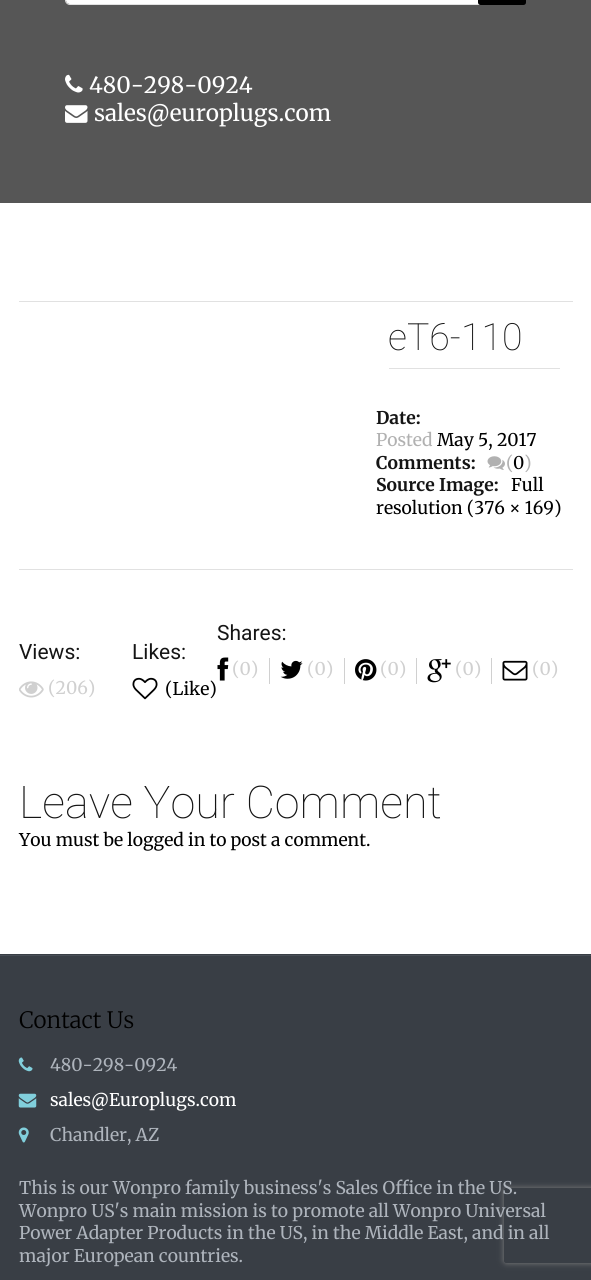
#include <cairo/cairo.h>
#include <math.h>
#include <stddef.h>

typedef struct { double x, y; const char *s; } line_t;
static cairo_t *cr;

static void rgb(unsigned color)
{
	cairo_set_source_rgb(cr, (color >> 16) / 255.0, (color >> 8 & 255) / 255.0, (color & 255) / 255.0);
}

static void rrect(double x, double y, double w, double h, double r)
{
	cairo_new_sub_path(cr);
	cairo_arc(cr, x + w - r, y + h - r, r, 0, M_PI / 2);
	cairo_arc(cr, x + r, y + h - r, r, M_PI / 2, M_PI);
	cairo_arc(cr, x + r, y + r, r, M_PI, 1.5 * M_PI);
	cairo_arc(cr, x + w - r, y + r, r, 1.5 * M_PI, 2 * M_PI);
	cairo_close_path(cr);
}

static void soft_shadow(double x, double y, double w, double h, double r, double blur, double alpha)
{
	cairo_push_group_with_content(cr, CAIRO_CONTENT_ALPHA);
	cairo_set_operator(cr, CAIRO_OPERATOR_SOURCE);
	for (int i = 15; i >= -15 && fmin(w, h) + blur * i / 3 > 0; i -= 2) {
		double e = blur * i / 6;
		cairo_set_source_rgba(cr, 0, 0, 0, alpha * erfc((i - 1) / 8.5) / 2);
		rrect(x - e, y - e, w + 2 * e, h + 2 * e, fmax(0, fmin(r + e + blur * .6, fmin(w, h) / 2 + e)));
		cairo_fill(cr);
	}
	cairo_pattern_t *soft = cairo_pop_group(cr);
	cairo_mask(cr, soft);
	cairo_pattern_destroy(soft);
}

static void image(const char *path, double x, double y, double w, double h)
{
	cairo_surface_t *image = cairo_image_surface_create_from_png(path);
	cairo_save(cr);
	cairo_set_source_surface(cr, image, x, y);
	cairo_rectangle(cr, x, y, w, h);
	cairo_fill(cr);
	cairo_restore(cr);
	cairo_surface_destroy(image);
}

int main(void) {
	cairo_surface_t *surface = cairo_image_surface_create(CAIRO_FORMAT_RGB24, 591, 1280);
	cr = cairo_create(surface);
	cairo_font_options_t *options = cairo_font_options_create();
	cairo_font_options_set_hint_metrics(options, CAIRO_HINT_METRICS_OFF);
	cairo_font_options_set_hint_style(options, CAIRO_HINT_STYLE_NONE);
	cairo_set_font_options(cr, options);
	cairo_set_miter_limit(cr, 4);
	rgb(0xffffff);
	cairo_paint(cr);
	rgb(0x565656);
	cairo_rectangle(cr, 0, 0, 591, 203);
	cairo_fill(cr);
	rgb(0xffffff);
	rrect(66, -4, 459, 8, 4);
	cairo_fill(cr);
	rrect(65.5, -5.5, 460, 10, 4.5);
	rgb(0xe1e1e1);
	cairo_set_line_width(cr, 1);
	cairo_stroke(cr);
	rgb(0x000000);
	rrect(478, -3, 48, 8, 2.5);
	cairo_fill(cr);
	image("img/1.png", 65, 74, 18, 19);
	image("img/2.png", 65, 105, 23, 18);
	rgb(0xe1e1e1);
	cairo_rectangle(cr, 19, 301, 554, 1);
	cairo_fill(cr);
	cairo_rectangle(cr, 389, 368, 171, 1);
	cairo_fill(cr);
	image("img/3.png", 487, 456, 18, 14);
	cairo_rectangle(cr, 19, 569, 554, 1);
	cairo_fill(cr);
	image("img/4.png", 19, 681, 25, 17);
	image("img/5.png", 132, 677, 26, 23);
	image("img/6.png", 217, 657, 12, 24);
	rgb(0xd0d0d0);
	cairo_rectangle(cr, 269, 658, 1, 26);
	cairo_fill(cr);
	image("img/7.png", 280, 660, 23, 19);
	cairo_rectangle(cr, 344, 658, 1, 26);
	cairo_fill(cr);
	image("img/8.png", 355, 659, 22, 22);
	cairo_rectangle(cr, 416, 658, 1, 26);
	cairo_fill(cr);
	image("img/9.png", 427, 659, 24, 24);
	cairo_rectangle(cr, 491, 658, 1, 26);
	cairo_fill(cr);
	image("img/10.png", 502, 660, 26, 21);
	rgb(0x393e45);
	cairo_rectangle(cr, 0, 954, 591, 326);
	cairo_fill(cr);
	rgb(0x484e56);
	cairo_rectangle(cr, 0, 955, 591, 1);
	cairo_fill(cr);
	image("img/11.png", 18, 1057, 15, 15);
	image("img/12.png", 18, 1093, 19, 15);
	image("img/13.png", 18, 1127, 11, 16);
	cairo_save(cr);
	cairo_set_fill_rule(cr, CAIRO_FILL_RULE_EVEN_ODD);
	cairo_new_path(cr);
	cairo_move_to(cr, 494, 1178);
	cairo_line_to(cr, 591, 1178);
	cairo_line_to(cr, 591, 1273);
	cairo_line_to(cr, 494, 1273);
	cairo_close_path(cr);
	cairo_move_to(cr, 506.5, 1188);
	cairo_line_to(cr, 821.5, 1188);
	cairo_curve_to(cr, 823, 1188, 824, 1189, 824, 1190.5);
	cairo_line_to(cr, 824, 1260.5);
	cairo_curve_to(cr, 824, 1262, 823, 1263, 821.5, 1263);
	cairo_line_to(cr, 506.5, 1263);
	cairo_curve_to(cr, 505, 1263, 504, 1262, 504, 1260.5);
	cairo_line_to(cr, 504, 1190.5);
	cairo_curve_to(cr, 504, 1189, 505, 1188, 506.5, 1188);
	cairo_close_path(cr);
	cairo_clip(cr);
	rgb(0x808080);
	soft_shadow(504, 1188, 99, 75, 2.5, 3, 1);
	cairo_restore(cr);
	cairo_select_font_face(cr, "Merriweather", CAIRO_FONT_SLANT_NORMAL, CAIRO_FONT_WEIGHT_NORMAL);
	cairo_set_font_size(cr, 22.5);
	rgb(0xffffff);
	cairo_move_to(cr, 89, 93);
	cairo_show_text(cr, "480-298-0924");
	cairo_move_to(cr, 94, 121);
	cairo_show_text(cr, "sales@europlugs.com");
	cairo_select_font_face(cr, "Roboto Thin", CAIRO_FONT_SLANT_NORMAL, CAIRO_FONT_WEIGHT_NORMAL);
	cairo_set_font_size(cr, 37.5);
	rgb(0x151515);
	cairo_move_to(cr, 388, 350);
	cairo_show_text(cr, "eT6-110");
	cairo_select_font_face(cr, "Merriweather", CAIRO_FONT_SLANT_NORMAL, CAIRO_FONT_WEIGHT_BOLD);
	cairo_set_font_size(cr, 17.5);
	cairo_move_to(cr, 376, 424);
	cairo_show_text(cr, "Date:");
	cairo_select_font_face(cr, "Merriweather", CAIRO_FONT_SLANT_NORMAL, CAIRO_FONT_WEIGHT_NORMAL);
	rgb(0xb1b1b1);
	cairo_move_to(cr, 376, 446);
	cairo_show_text(cr, "Posted");
	rgb(0x000000);
	cairo_move_to(cr, 437, 446);
	cairo_show_text(cr, "May 5, 2017");
	cairo_select_font_face(cr, "Merriweather", CAIRO_FONT_SLANT_NORMAL, CAIRO_FONT_WEIGHT_BOLD);
	rgb(0x151515);
	cairo_move_to(cr, 376, 469);
	cairo_show_text(cr, "Comments:");
	cairo_select_font_face(cr, "Merriweather", CAIRO_FONT_SLANT_NORMAL, CAIRO_FONT_WEIGHT_NORMAL);
	rgb(0xb1b1b1);
	cairo_move_to(cr, 506, 469);
	cairo_show_text(cr, "(");
	rgb(0x000000);
	cairo_move_to(cr, 513, 469);
	cairo_show_text(cr, "0");
	rgb(0xb1b1b1);
	cairo_move_to(cr, 524, 469);
	cairo_show_text(cr, ")");
	cairo_select_font_face(cr, "Merriweather", CAIRO_FONT_SLANT_NORMAL, CAIRO_FONT_WEIGHT_BOLD);
	rgb(0x151515);
	cairo_move_to(cr, 376, 491);
	cairo_show_text(cr, "Source Image:");
	cairo_select_font_face(cr, "Merriweather", CAIRO_FONT_SLANT_NORMAL, CAIRO_FONT_WEIGHT_NORMAL);
	rgb(0x000000);
	cairo_move_to(cr, 511, 491);
	cairo_show_text(cr, "Full");
	cairo_move_to(cr, 376, 514);
	cairo_show_text(cr, "resolution (376 × 169)");
	cairo_select_font_face(cr, "Roboto", CAIRO_FONT_SLANT_NORMAL, CAIRO_FONT_WEIGHT_NORMAL);
	cairo_set_font_size(cr, 21);
	rgb(0x151515);
	cairo_move_to(cr, 19, 659);
	cairo_show_text(cr, "Views:");
	cairo_select_font_face(cr, "Merriweather", CAIRO_FONT_SLANT_NORMAL, CAIRO_FONT_WEIGHT_NORMAL);
	cairo_set_font_size(cr, 17.5);
	rgb(0xd0d0d0);
	cairo_move_to(cr, 48, 694);
	cairo_show_text(cr, "(206)");
	cairo_select_font_face(cr, "Roboto", CAIRO_FONT_SLANT_NORMAL, CAIRO_FONT_WEIGHT_NORMAL);
	cairo_set_font_size(cr, 21);
	rgb(0x151515);
	cairo_move_to(cr, 132, 659);
	cairo_show_text(cr, "Likes:");
	cairo_select_font_face(cr, "Merriweather", CAIRO_FONT_SLANT_NORMAL, CAIRO_FONT_WEIGHT_NORMAL);
	cairo_set_font_size(cr, 17.5);
	rgb(0x000000);
	cairo_move_to(cr, 165, 695);
	cairo_show_text(cr, "(Like)");
	cairo_select_font_face(cr, "Roboto", CAIRO_FONT_SLANT_NORMAL, CAIRO_FONT_WEIGHT_NORMAL);
	cairo_set_font_size(cr, 21);
	rgb(0x151515);
	cairo_move_to(cr, 217, 640);
	cairo_show_text(cr, "Shares:");
	cairo_select_font_face(cr, "Merriweather", CAIRO_FONT_SLANT_NORMAL, CAIRO_FONT_WEIGHT_NORMAL);
	cairo_set_font_size(cr, 17.5);
	rgb(0xd0d0d0);
	{
		static const line_t items[] = {
			{232, 675, "(0)"},
			{307, 675, "(0)"},
			{380, 675, "(0)"},
			{455, 675, "(0)"},
			{532, 675, "(0)"},
		};
		for (size_t i = 0; i < sizeof items / sizeof *items; i++) {
			cairo_move_to(cr, items[i].x, items[i].y);
			cairo_show_text(cr, items[i].s);
		}
	}
	cairo_select_font_face(cr, "Roboto Thin", CAIRO_FONT_SLANT_NORMAL, CAIRO_FONT_WEIGHT_NORMAL);
	cairo_set_font_size(cr, 45);
	rgb(0x151515);
	cairo_move_to(cr, 19, 818);
	cairo_show_text(cr, "Leave Your Comment");
	cairo_select_font_face(cr, "Merriweather", CAIRO_FONT_SLANT_NORMAL, CAIRO_FONT_WEIGHT_NORMAL);
	cairo_set_font_size(cr, 17.5);
	rgb(0x000000);
	cairo_move_to(cr, 19, 846);
	cairo_show_text(cr, "You must be logged in to post a comment.");
	cairo_select_font_face(cr, "Merriweather Light", CAIRO_FONT_SLANT_NORMAL, CAIRO_FONT_WEIGHT_NORMAL);
	cairo_set_font_size(cr, 22.5);
	cairo_move_to(cr, 19, 1028);
	cairo_show_text(cr, "Contact Us");
	cairo_select_font_face(cr, "Merriweather", CAIRO_FONT_SLANT_NORMAL, CAIRO_FONT_WEIGHT_NORMAL);
	cairo_set_font_size(cr, 17.5);
	rgb(0xaeb4bc);
	cairo_move_to(cr, 50, 1071);
	cairo_show_text(cr, "480-298-0924");
	rgb(0xffffff);
	cairo_move_to(cr, 50, 1106);
	cairo_show_text(cr, "sales@Europlugs.com");
	rgb(0xaeb4bc);
	{
		static const line_t items[] = {
			{50, 1141, "Chandler, AZ"},
			{19, 1194, "This is our Wonpro family business's Sales Office in the US."},
			{19, 1217, "Wonpro US's main mission is to promote all Wonpro Universal"},
			{19, 1239, "Power Adapter Products in the US, in the Middle East, and in all"},
			{19, 1262, "major European countries."},
		};
		for (size_t i = 0; i < sizeof items / sizeof *items; i++) {
			cairo_move_to(cr, items[i].x, items[i].y);
			cairo_show_text(cr, items[i].s);
		}
	}
	cairo_surface_write_to_png(surface, "page.png");
	cairo_font_options_destroy(options);
	cairo_destroy(cr);
	cairo_surface_destroy(surface);
	return 0;
}
